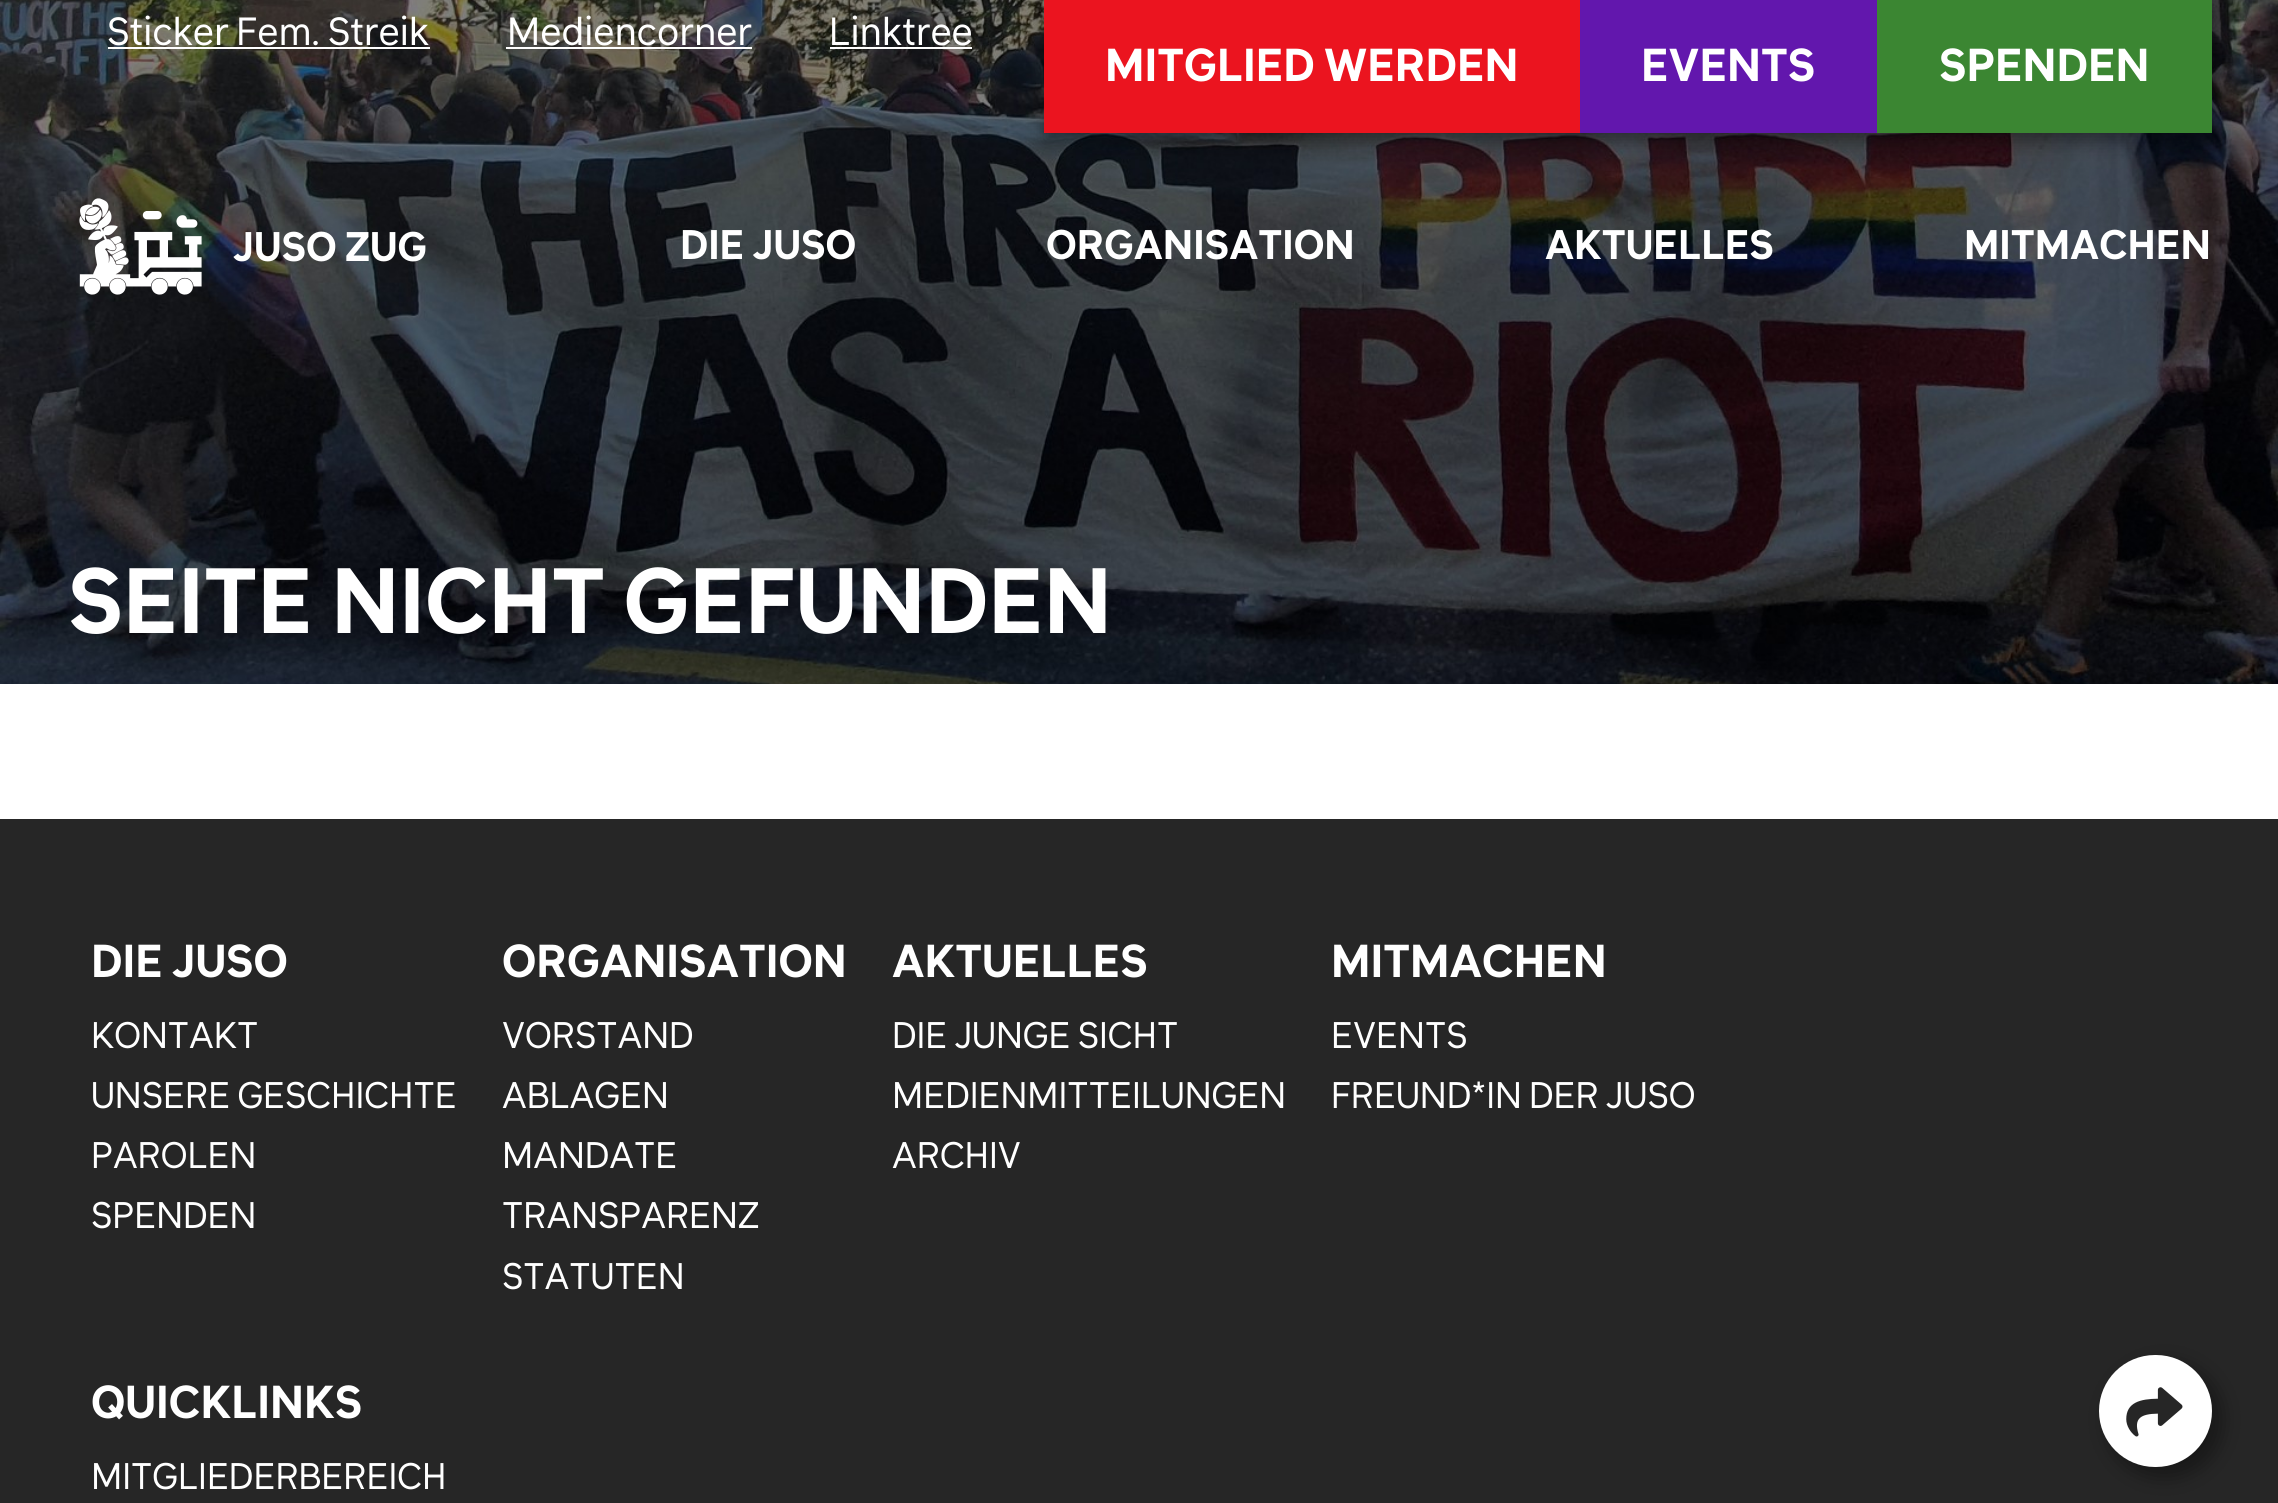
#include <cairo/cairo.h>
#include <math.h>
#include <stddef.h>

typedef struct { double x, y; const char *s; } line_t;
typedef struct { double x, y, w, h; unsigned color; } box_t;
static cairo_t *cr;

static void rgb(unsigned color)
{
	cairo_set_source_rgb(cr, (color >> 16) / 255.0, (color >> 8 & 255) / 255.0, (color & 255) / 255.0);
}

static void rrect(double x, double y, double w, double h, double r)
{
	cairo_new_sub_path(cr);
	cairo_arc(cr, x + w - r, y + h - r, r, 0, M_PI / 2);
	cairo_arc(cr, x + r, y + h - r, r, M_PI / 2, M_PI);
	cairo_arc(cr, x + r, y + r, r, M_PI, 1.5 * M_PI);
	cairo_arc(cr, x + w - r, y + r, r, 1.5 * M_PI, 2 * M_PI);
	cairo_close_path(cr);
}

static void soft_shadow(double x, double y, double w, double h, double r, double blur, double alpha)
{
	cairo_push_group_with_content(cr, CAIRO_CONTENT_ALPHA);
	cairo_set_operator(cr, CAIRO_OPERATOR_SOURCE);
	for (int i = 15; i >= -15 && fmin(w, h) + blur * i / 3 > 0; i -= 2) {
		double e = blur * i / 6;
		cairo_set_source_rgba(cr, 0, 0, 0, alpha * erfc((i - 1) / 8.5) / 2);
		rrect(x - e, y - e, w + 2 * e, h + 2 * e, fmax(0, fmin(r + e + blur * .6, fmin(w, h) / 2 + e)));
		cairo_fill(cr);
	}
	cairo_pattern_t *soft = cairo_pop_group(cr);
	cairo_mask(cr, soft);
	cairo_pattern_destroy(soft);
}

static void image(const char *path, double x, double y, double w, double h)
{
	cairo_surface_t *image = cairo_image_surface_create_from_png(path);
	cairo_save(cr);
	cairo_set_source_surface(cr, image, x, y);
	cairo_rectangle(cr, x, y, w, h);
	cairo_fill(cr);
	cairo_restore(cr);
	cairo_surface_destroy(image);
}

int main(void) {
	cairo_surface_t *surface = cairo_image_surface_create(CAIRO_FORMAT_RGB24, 2278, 1503);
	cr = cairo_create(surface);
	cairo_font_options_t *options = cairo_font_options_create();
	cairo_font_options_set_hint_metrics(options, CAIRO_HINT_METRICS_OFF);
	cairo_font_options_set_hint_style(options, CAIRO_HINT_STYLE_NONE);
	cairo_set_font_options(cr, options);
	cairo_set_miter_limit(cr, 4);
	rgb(0xffffff);
	cairo_paint(cr);
	image("img/1.png", 0, 0, 2278, 684);
	{
		static const box_t items[] = {
			{108, 47, 322, 2, 0xffffff},
			{506, 47, 246, 2, 0xffffff},
			{830, 47, 142, 2, 0xffffff},
		};
		for (size_t i = 0; i < sizeof items / sizeof *items; i++) {
			rgb(items[i].color);
			cairo_rectangle(cr, items[i].x, items[i].y, items[i].w, items[i].h);
			cairo_fill(cr);
		}
	}
	rgb(0x000000);
	soft_shadow(1044, 9, 1168, 133, 0, 9, 0.4);
	{
		static const box_t items[] = {
			{1044, 0, 536, 133, 0xeb141f},
			{1580, 0, 297, 133, 0x6217ad},
			{1877, 0, 335, 133, 0x3b8632},
		};
		for (size_t i = 0; i < sizeof items / sizeof *items; i++) {
			rgb(items[i].color);
			cairo_rectangle(cr, items[i].x, items[i].y, items[i].w, items[i].h);
			cairo_fill(cr);
		}
	}
	image("img/2.png", 79, 198, 123, 97);
	rgb(0x262626);
	cairo_rectangle(cr, 0, 819, 2278, 684);
	cairo_fill(cr);
	rgb(0x000000);
	soft_shadow(2108, 1364, 113, 112, 56, 11, 0.4);
	rgb(0xffffff);
	rrect(2099, 1355, 113, 112, 56);
	cairo_fill(cr);
	image("img/3.png", 2126, 1387, 57, 50);
	cairo_select_font_face(cr, "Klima", CAIRO_FONT_SLANT_NORMAL, CAIRO_FONT_WEIGHT_NORMAL);
	cairo_set_font_size(cr, 38.75);
	{
		static const line_t items[] = {
			{107, 45, "Sticker Fem. Streik"},
			{507, 45, "Mediencorner"},
			{829, 45, "Linktree"},
		};
		for (size_t i = 0; i < sizeof items / sizeof *items; i++) {
			cairo_move_to(cr, items[i].x, items[i].y);
			cairo_show_text(cr, items[i].s);
		}
	}
	cairo_select_font_face(cr, "Klima", CAIRO_FONT_SLANT_NORMAL, CAIRO_FONT_WEIGHT_BOLD);
	cairo_set_font_size(cr, 45.5);
	{
		static const line_t items[] = {
			{1105, 81, "MITGLIED WERDEN"},
			{1641, 81, "EVENTS"},
			{1939, 81, "SPENDEN"},
		};
		for (size_t i = 0; i < sizeof items / sizeof *items; i++) {
			cairo_move_to(cr, items[i].x, items[i].y);
			cairo_show_text(cr, items[i].s);
		}
	}
	cairo_set_font_size(cr, 91.25);
	cairo_move_to(cr, 68, 633);
	cairo_show_text(cr, "SEITE NICHT GEFUNDEN");
	cairo_set_font_size(cr, 40.75);
	{
		static const line_t items[] = {
			{233, 261, "JUSO ZUG"},
			{680, 259, "DIE JUSO"},
			{1046, 259, "ORGANISATION"},
			{1545, 259, "AKTUELLES"},
			{1964, 259, "MITMACHEN"},
		};
		for (size_t i = 0; i < sizeof items / sizeof *items; i++) {
			cairo_move_to(cr, items[i].x, items[i].y);
			cairo_show_text(cr, items[i].s);
		}
	}
	cairo_set_font_size(cr, 45.5);
	cairo_move_to(cr, 91, 977);
	cairo_show_text(cr, "DIE JUSO");
	cairo_select_font_face(cr, "Klima", CAIRO_FONT_SLANT_NORMAL, CAIRO_FONT_WEIGHT_NORMAL);
	cairo_set_font_size(cr, 36.5);
	{
		static const line_t items[] = {
			{91, 1048, "KONTAKT"},
			{91, 1108, "UNSERE GESCHICHTE"},
			{91, 1168, "PAROLEN"},
			{91, 1228, "SPENDEN"},
		};
		for (size_t i = 0; i < sizeof items / sizeof *items; i++) {
			cairo_move_to(cr, items[i].x, items[i].y);
			cairo_show_text(cr, items[i].s);
		}
	}
	cairo_select_font_face(cr, "Klima", CAIRO_FONT_SLANT_NORMAL, CAIRO_FONT_WEIGHT_BOLD);
	cairo_set_font_size(cr, 45.5);
	cairo_move_to(cr, 502, 977);
	cairo_show_text(cr, "ORGANISATION");
	cairo_select_font_face(cr, "Klima", CAIRO_FONT_SLANT_NORMAL, CAIRO_FONT_WEIGHT_NORMAL);
	cairo_set_font_size(cr, 36.5);
	{
		static const line_t items[] = {
			{502, 1048, "VORSTAND"},
			{502, 1108, "ABLAGEN"},
			{502, 1168, "MANDATE"},
			{502, 1228, "TRANSPARENZ"},
			{502, 1289, "STATUTEN"},
		};
		for (size_t i = 0; i < sizeof items / sizeof *items; i++) {
			cairo_move_to(cr, items[i].x, items[i].y);
			cairo_show_text(cr, items[i].s);
		}
	}
	cairo_select_font_face(cr, "Klima", CAIRO_FONT_SLANT_NORMAL, CAIRO_FONT_WEIGHT_BOLD);
	cairo_set_font_size(cr, 45.5);
	cairo_move_to(cr, 892, 977);
	cairo_show_text(cr, "AKTUELLES");
	cairo_select_font_face(cr, "Klima", CAIRO_FONT_SLANT_NORMAL, CAIRO_FONT_WEIGHT_NORMAL);
	cairo_set_font_size(cr, 36.5);
	{
		static const line_t items[] = {
			{892, 1048, "DIE JUNGE SICHT"},
			{892, 1108, "MEDIENMITTEILUNGEN"},
			{892, 1168, "ARCHIV"},
		};
		for (size_t i = 0; i < sizeof items / sizeof *items; i++) {
			cairo_move_to(cr, items[i].x, items[i].y);
			cairo_show_text(cr, items[i].s);
		}
	}
	cairo_select_font_face(cr, "Klima", CAIRO_FONT_SLANT_NORMAL, CAIRO_FONT_WEIGHT_BOLD);
	cairo_set_font_size(cr, 45.5);
	cairo_move_to(cr, 1331, 977);
	cairo_show_text(cr, "MITMACHEN");
	cairo_select_font_face(cr, "Klima", CAIRO_FONT_SLANT_NORMAL, CAIRO_FONT_WEIGHT_NORMAL);
	cairo_set_font_size(cr, 36.5);
	cairo_move_to(cr, 1331, 1048);
	cairo_show_text(cr, "EVENTS");
	cairo_move_to(cr, 1331, 1108);
	cairo_show_text(cr, "FREUND*IN DER JUSO");
	cairo_select_font_face(cr, "Klima", CAIRO_FONT_SLANT_NORMAL, CAIRO_FONT_WEIGHT_BOLD);
	cairo_set_font_size(cr, 45.5);
	cairo_move_to(cr, 91, 1418);
	cairo_show_text(cr, "QUICKLINKS");
	cairo_select_font_face(cr, "Klima", CAIRO_FONT_SLANT_NORMAL, CAIRO_FONT_WEIGHT_NORMAL);
	cairo_set_font_size(cr, 36.5);
	cairo_move_to(cr, 91, 1489);
	cairo_show_text(cr, "MITGLIEDERBEREICH");
	cairo_surface_write_to_png(surface, "page.png");
	cairo_font_options_destroy(options);
	cairo_destroy(cr);
	cairo_surface_destroy(surface);
	return 0;
}
